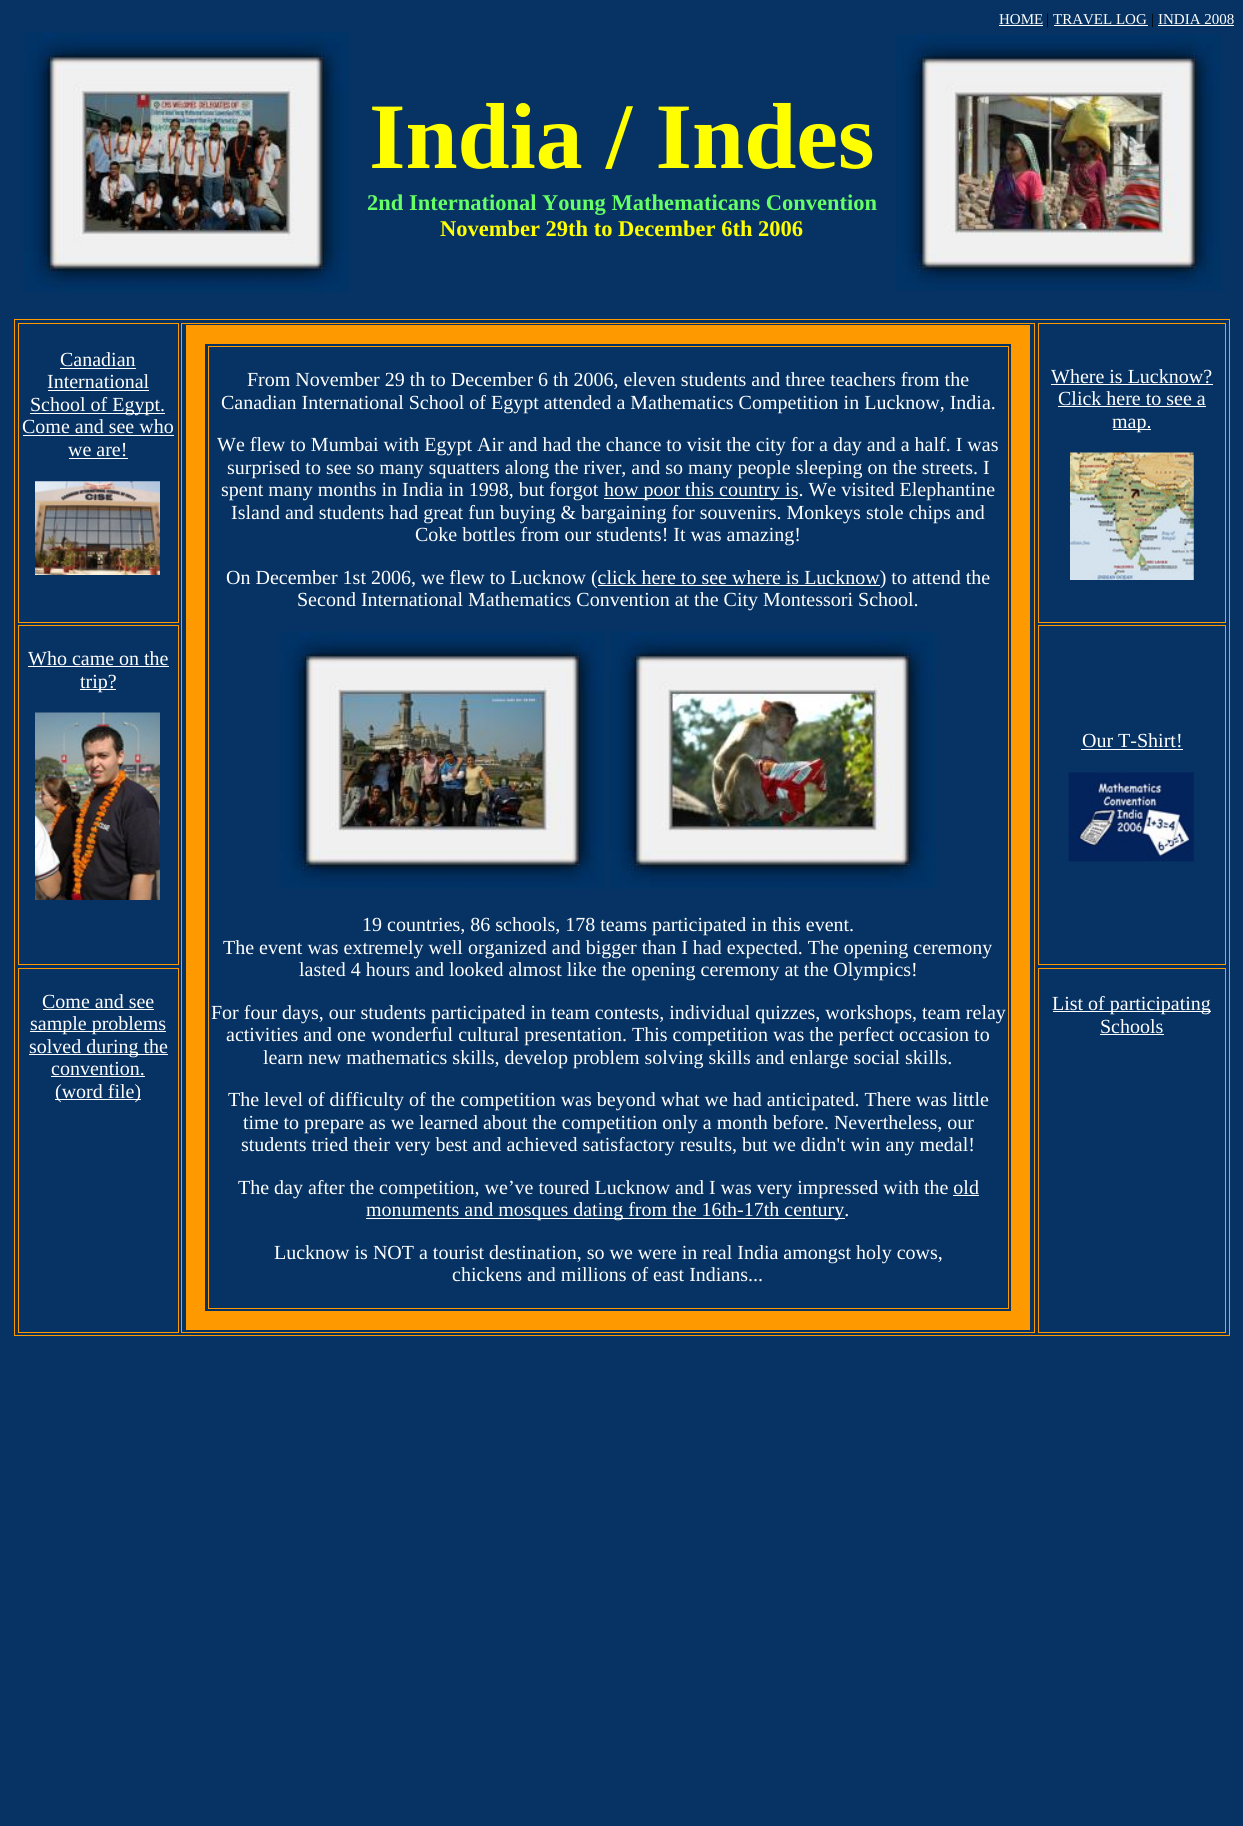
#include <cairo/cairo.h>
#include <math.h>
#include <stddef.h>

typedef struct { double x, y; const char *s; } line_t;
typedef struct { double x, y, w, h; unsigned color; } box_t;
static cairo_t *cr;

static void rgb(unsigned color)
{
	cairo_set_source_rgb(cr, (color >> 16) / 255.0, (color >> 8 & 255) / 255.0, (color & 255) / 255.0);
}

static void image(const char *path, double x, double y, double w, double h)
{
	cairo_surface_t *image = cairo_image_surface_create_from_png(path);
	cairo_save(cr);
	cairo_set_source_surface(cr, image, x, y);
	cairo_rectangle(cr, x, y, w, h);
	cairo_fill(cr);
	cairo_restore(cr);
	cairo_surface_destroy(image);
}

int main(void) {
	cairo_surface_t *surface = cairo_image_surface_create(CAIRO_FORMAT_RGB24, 1243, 1826);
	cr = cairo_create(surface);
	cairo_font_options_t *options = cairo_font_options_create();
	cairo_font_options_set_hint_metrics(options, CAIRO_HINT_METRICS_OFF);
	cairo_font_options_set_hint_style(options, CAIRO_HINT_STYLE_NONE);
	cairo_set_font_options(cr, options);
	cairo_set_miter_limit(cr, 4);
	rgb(0x063364);
	cairo_paint(cr);
	{
		static const box_t items[] = {
			{999, 25, 44, 1, 0xffffff},
			{1054, 25, 94, 1, 0xffffff},
			{1158, 25, 76, 1, 0xffffff},
		};
		for (size_t i = 0; i < sizeof items / sizeof *items; i++) {
			rgb(items[i].color);
			cairo_rectangle(cr, items[i].x, items[i].y, items[i].w, items[i].h);
			cairo_fill(cr);
		}
	}
	image("img/1.png", 24, 32, 325, 260);
	image("img/2.png", 896, 34, 325, 257);
	cairo_rectangle(cr, 14.5, 319.5, 1215, 1016);
	rgb(0xff9900);
	cairo_set_line_width(cr, 1);
	cairo_stroke(cr);
	cairo_rectangle(cr, 18.5, 323.5, 160, 299);
	cairo_stroke(cr);
	{
		static const box_t items[] = {
			{60, 368, 76, 1, 0xffffff},
			{48, 390, 101, 1, 0xffffff},
			{30, 413, 135, 1, 0xffffff},
			{23, 435, 151, 1, 0xffffff},
			{69, 458, 59, 1, 0xffffff},
		};
		for (size_t i = 0; i < sizeof items / sizeof *items; i++) {
			rgb(items[i].color);
			cairo_rectangle(cr, items[i].x, items[i].y, items[i].w, items[i].h);
			cairo_fill(cr);
		}
	}
	image("img/3.png", 35, 481, 125, 94);
	cairo_rectangle(cr, 181.5, 323.5, 853, 1009);
	rgb(0xff9900);
	cairo_stroke(cr);
	cairo_rectangle(cr, 195.5, 334.5, 825, 986);
	cairo_set_line_width(cr, 19);
	cairo_stroke(cr);
	cairo_rectangle(cr, 208.5, 346.5, 800, 962);
	cairo_set_line_width(cr, 1);
	cairo_stroke(cr);
	rgb(0xffffff);
	cairo_rectangle(cr, 604, 498, 194, 1);
	cairo_fill(cr);
	cairo_rectangle(cr, 598, 585, 282, 1);
	cairo_fill(cr);
	image("img/4.png", 280, 631, 325, 258);
	image("img/5.png", 610, 631, 325, 258);
	cairo_rectangle(cr, 953, 1195, 26, 1);
	cairo_fill(cr);
	cairo_rectangle(cr, 366, 1218, 479, 1);
	cairo_fill(cr);
	cairo_rectangle(cr, 1038.5, 323.5, 187, 299);
	rgb(0xff9900);
	cairo_stroke(cr);
	{
		static const box_t items[] = {
			{1051, 384, 162, 1, 0xffffff},
			{1058, 406, 148, 1, 0xffffff},
			{1113, 429, 38, 1, 0xffffff},
		};
		for (size_t i = 0; i < sizeof items / sizeof *items; i++) {
			rgb(items[i].color);
			cairo_rectangle(cr, items[i].x, items[i].y, items[i].w, items[i].h);
			cairo_fill(cr);
		}
	}
	image("img/6.png", 1070, 452, 124, 128);
	cairo_rectangle(cr, 18.5, 625.5, 160, 339);
	rgb(0xff9900);
	cairo_stroke(cr);
	rgb(0xffffff);
	cairo_rectangle(cr, 28, 666, 141, 1);
	cairo_fill(cr);
	cairo_rectangle(cr, 80, 689, 36, 1);
	cairo_fill(cr);
	image("img/7.png", 35, 712, 125, 188);
	cairo_rectangle(cr, 1038.5, 625.5, 187, 339);
	rgb(0xff9900);
	cairo_stroke(cr);
	rgb(0xffffff);
	cairo_rectangle(cr, 1081, 749, 102, 1);
	cairo_fill(cr);
	image("img/8.png", 1068, 772, 126, 90);
	cairo_rectangle(cr, 18.5, 968.5, 160, 364);
	rgb(0xff9900);
	cairo_stroke(cr);
	{
		static const box_t items[] = {
			{43, 1009, 111, 1, 0xffffff},
			{30, 1031, 136, 1, 0xffffff},
			{29, 1054, 139, 1, 0xffffff},
			{51, 1076, 94, 1, 0xffffff},
			{55, 1099, 86, 1, 0xffffff},
		};
		for (size_t i = 0; i < sizeof items / sizeof *items; i++) {
			rgb(items[i].color);
			cairo_rectangle(cr, items[i].x, items[i].y, items[i].w, items[i].h);
			cairo_fill(cr);
		}
	}
	cairo_rectangle(cr, 1038.5, 968.5, 187, 364);
	rgb(0xff9900);
	cairo_stroke(cr);
	rgb(0xffffff);
	cairo_rectangle(cr, 1053, 1011, 158, 1);
	cairo_fill(cr);
	cairo_rectangle(cr, 1100, 1034, 64, 1);
	cairo_fill(cr);
	cairo_select_font_face(cr, "Liberation Serif", CAIRO_FONT_SLANT_NORMAL, CAIRO_FONT_WEIGHT_NORMAL);
	cairo_set_font_size(cr, 15);
	cairo_move_to(cr, 999, 24);
	cairo_show_text(cr, "HOME");
	rgb(0x000000);
	cairo_move_to(cr, 1046, 24);
	cairo_show_text(cr, "|");
	rgb(0xffffff);
	cairo_move_to(cr, 1053, 24);
	cairo_show_text(cr, "TRAVEL LOG");
	rgb(0x000000);
	cairo_move_to(cr, 1151, 24);
	cairo_show_text(cr, "|");
	rgb(0xffffff);
	cairo_move_to(cr, 1158, 24);
	cairo_show_text(cr, "INDIA 2008");
	cairo_select_font_face(cr, "Liberation Serif", CAIRO_FONT_SLANT_NORMAL, CAIRO_FONT_WEIGHT_BOLD);
	cairo_set_font_size(cr, 93.75);
	rgb(0xffff00);
	cairo_move_to(cr, 369, 168);
	cairo_show_text(cr, "India / Indes");
	cairo_set_font_size(cr, 22.5);
	rgb(0x66ff66);
	cairo_move_to(cr, 367, 210);
	cairo_show_text(cr, "2nd International Young Mathematicans Convention");
	rgb(0xffff00);
	cairo_move_to(cr, 440, 236);
	cairo_show_text(cr, "November 29th to December 6th 2006");
	cairo_select_font_face(cr, "Liberation Serif", CAIRO_FONT_SLANT_NORMAL, CAIRO_FONT_WEIGHT_NORMAL);
	cairo_set_font_size(cr, 20);
	rgb(0xffffff);
	{
		static const line_t items[] = {
			{60, 366, "Canadian"},
			{47, 388, "International"},
			{30, 411, "School of Egypt."},
			{22, 433, "Come and see who"},
			{68, 456, "we are!"},
			{247, 386, "From November 29 th to December 6 th 2006, eleven students and three teachers from the"},
			{221, 409, "Canadian International School of Egypt attended a Mathematics Competition in Lucknow, India."},
			{217, 451, "We flew to Mumbai with Egypt Air and had the chance to visit the city for a day and a half. I was"},
			{227, 474, "surprised to see so many squatters along the river, and so many people sleeping on the streets. I"},
			{221, 496, "spent many months in India in 1998, but forgot"},
			{604, 496, "how poor this country is. We visited Elephantine"},
			{231, 519, "Island and students had great fun buying & bargaining for souvenirs. Monkeys stole chips and"},
			{415, 541, "Coke bottles from our students! It was amazing!"},
			{226, 584, "On December 1st 2006, we flew to Lucknow (click here to see where is Lucknow) to attend the"},
			{297, 606, "Second International Mathematics Convention at the City Montessori School."},
			{362, 931, "19 countries, 86 schools, 178 teams participated in this event."},
			{223, 954, "The event was extremely well organized and bigger than I had expected. The opening ceremony"},
			{299, 976, "lasted 4 hours and looked almost like the opening ceremony at the Olympics!"},
			{211, 1019, "For four days, our students participated in team contests, individual quizzes, workshops, team relay"},
			{226, 1041, "activities and one wonderful cultural presentation. This competition was the perfect occasion to"},
			{263, 1064, "learn new mathematics skills, develop problem solving skills and enlarge social skills."},
			{228, 1106, "The level of difficulty of the competition was beyond what we had anticipated. There was little"},
			{243, 1129, "time to prepare as we learned about the competition only a month before. Nevertheless, our"},
			{241, 1151, "students tried their very best and achieved satisfactory results, but we didn't win any medal!"},
			{238, 1194, "The day after the competition, we’ve toured Lucknow and I was very impressed with the old"},
			{366, 1216, "monuments and mosques dating from the 16th-17th century."},
			{274, 1259, "Lucknow is NOT a tourist destination, so we were in real India amongst holy cows,"},
			{452, 1281, "chickens and millions of east Indians..."},
			{1051, 383, "Where is Lucknow?"},
			{1058, 405, "Click here to see a"},
			{1112, 428, "map."},
			{28, 665, "Who came on the"},
			{80, 688, "trip?"},
			{1082, 747, "Our T-Shirt!"},
			{42, 1008, "Come and see"},
			{30, 1030, "sample problems"},
			{29, 1053, "solved during the"},
			{51, 1075, "convention."},
			{55, 1098, "(word file)"},
			{1052, 1010, "List of participating"},
			{1100, 1033, "Schools"},
		};
		for (size_t i = 0; i < sizeof items / sizeof *items; i++) {
			cairo_move_to(cr, items[i].x, items[i].y);
			cairo_show_text(cr, items[i].s);
		}
	}
	cairo_surface_write_to_png(surface, "page.png");
	cairo_font_options_destroy(options);
	cairo_destroy(cr);
	cairo_surface_destroy(surface);
	return 0;
}
